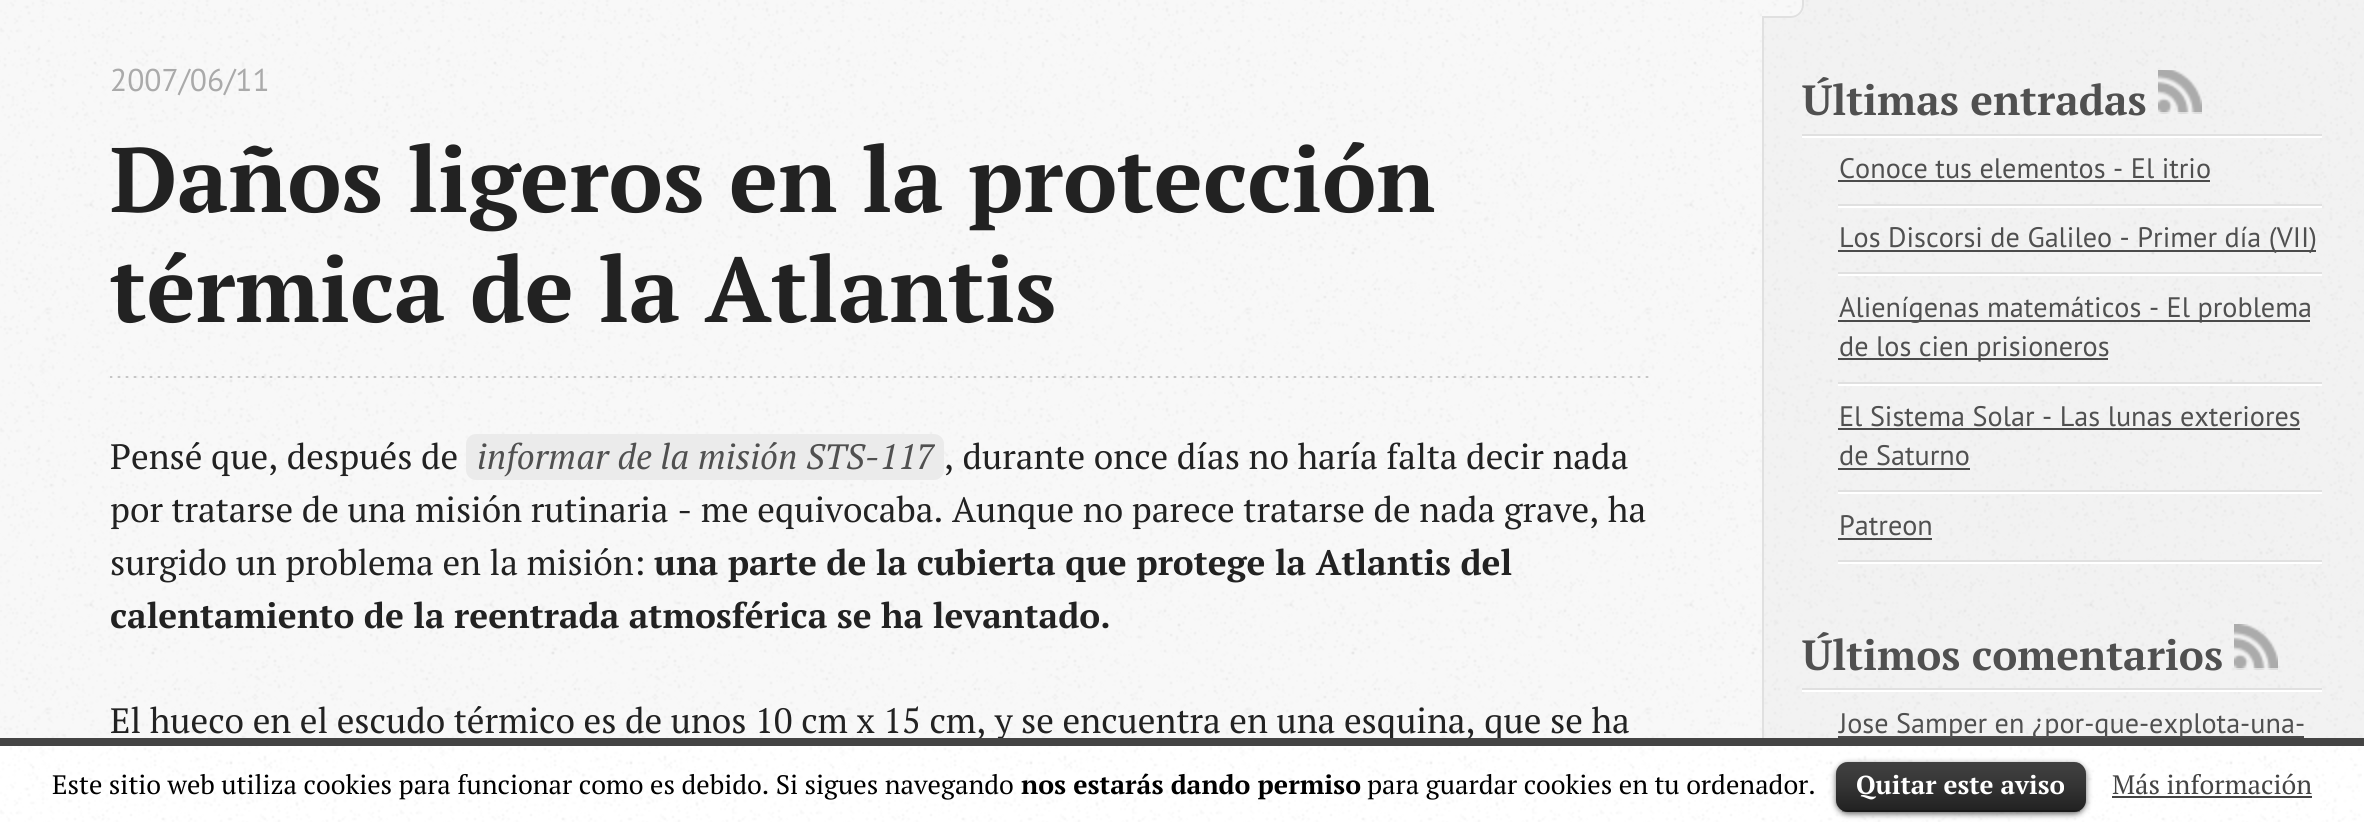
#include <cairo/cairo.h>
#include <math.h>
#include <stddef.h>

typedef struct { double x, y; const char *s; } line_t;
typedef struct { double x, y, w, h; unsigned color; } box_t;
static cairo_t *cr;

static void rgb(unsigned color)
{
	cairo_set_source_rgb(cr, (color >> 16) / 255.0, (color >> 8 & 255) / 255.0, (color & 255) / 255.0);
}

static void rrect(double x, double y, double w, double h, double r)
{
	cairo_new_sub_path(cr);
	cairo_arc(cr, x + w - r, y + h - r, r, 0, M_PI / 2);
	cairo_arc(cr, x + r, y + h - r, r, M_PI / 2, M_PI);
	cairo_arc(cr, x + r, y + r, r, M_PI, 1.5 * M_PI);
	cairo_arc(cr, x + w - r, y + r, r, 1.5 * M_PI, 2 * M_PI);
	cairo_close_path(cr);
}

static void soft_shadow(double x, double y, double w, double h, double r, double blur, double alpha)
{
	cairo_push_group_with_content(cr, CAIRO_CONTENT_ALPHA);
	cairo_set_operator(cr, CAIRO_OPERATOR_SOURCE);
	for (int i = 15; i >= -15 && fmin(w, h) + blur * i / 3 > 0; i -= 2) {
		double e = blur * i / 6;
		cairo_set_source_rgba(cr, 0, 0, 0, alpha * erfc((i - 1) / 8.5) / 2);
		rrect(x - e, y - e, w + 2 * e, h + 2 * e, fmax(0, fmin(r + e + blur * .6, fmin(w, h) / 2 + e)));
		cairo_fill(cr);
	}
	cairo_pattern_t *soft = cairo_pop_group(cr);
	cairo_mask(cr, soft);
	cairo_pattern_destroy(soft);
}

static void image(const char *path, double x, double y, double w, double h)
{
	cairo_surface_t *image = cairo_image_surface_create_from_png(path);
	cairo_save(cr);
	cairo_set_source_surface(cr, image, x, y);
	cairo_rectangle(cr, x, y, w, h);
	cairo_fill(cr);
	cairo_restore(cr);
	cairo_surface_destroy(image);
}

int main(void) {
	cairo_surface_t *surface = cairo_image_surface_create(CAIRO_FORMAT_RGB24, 2364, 822);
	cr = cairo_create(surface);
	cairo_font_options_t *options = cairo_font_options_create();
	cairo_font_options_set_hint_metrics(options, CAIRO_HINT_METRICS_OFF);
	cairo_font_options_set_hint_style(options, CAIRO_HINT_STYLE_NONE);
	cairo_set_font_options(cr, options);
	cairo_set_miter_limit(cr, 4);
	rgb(0xf2f2f2);
	cairo_paint(cr);
	image("img/1.png", 1764, 0, 600, 738);
	rgb(0xf8f8f8);
	cairo_rectangle(cr, 0, 0, 1762, 738);
	cairo_fill(cr);
	image("img/2.png", 0, 0, 1762, 738);
	rgb(0xe0e0e0);
	cairo_rectangle(cr, 1762, 18, 2, 720);
	cairo_fill(cr);
	rgb(0xf8f8f8);
	cairo_new_path(cr);
	cairo_move_to(cr, 1762, -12);
	cairo_line_to(cr, 1804, -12);
	cairo_line_to(cr, 1804, 6);
	cairo_curve_to(cr, 1804, 12.5, 1798.5, 18, 1792, 18);
	cairo_line_to(cr, 1762, 18);
	cairo_close_path(cr);
	cairo_fill(cr);
	image("img/3.png", 1762, 0, 40, 14);
	rgb(0xe0e0e0);
	cairo_set_fill_rule(cr, CAIRO_FILL_RULE_EVEN_ODD);
	cairo_new_path(cr);
	cairo_move_to(cr, 1762, -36);
	cairo_line_to(cr, 1804, -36);
	cairo_line_to(cr, 1804, 5);
	cairo_curve_to(cr, 1804, 12, 1798, 18, 1791, 18);
	cairo_line_to(cr, 1762, 18);
	cairo_close_path(cr);
	cairo_move_to(cr, 1762, -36);
	cairo_line_to(cr, 1802, -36);
	cairo_line_to(cr, 1802, 5);
	cairo_curve_to(cr, 1802, 11, 1797, 16, 1791, 16);
	cairo_line_to(cr, 1762, 16);
	cairo_close_path(cr);
	cairo_fill(cr);
	image("img/4.png", 110, 376, 1539, 2);
	rgb(0xebebeb);
	rrect(466, 434, 478, 46, 10);
	cairo_fill(cr);
	rgb(0xffffff);
	cairo_rectangle(cr, 1802, 136, 520, 2);
	cairo_fill(cr);
	rgb(0xe0e0e0);
	cairo_rectangle(cr, 1802, 134, 520, 2);
	cairo_fill(cr);
	image("img/5.png", 2158, 70, 44, 44);
	image("img/6.png", 2158, 70, 44, 42);
	{
		static const box_t items[] = {
			{1838, 206, 484, 2, 0xffffff},
			{1838, 204, 484, 2, 0xe0e0e0},
			{1838, 180, 372, 2, 0x4b4b4b},
			{1838, 274, 484, 2, 0xffffff},
			{1838, 272, 484, 2, 0xe0e0e0},
			{1838, 250, 478, 2, 0x4b4b4b},
			{1838, 384, 484, 2, 0xffffff},
			{1838, 382, 484, 2, 0xe0e0e0},
			{1838, 320, 472, 2, 0x4b4b4b},
			{1838, 358, 270, 2, 0x4b4b4b},
			{1838, 492, 484, 2, 0xffffff},
			{1838, 490, 484, 2, 0xe0e0e0},
			{1838, 428, 462, 2, 0x4b4b4b},
			{1838, 468, 132, 2, 0x4b4b4b},
			{1838, 562, 484, 2, 0xffffff},
			{1838, 560, 484, 2, 0xe0e0e0},
			{1838, 538, 94, 2, 0x4b4b4b},
			{1802, 690, 520, 2, 0xffffff},
			{1802, 688, 520, 2, 0xe0e0e0},
		};
		for (size_t i = 0; i < sizeof items / sizeof *items; i++) {
			rgb(items[i].color);
			cairo_rectangle(cr, items[i].x, items[i].y, items[i].w, items[i].h);
			cairo_fill(cr);
		}
	}
	image("img/7.png", 2234, 626, 44, 44);
	image("img/8.png", 2234, 624, 44, 44);
	rgb(0x4b4b4b);
	cairo_rectangle(cr, 1838, 736, 466, 2);
	cairo_fill(cr);
	rgb(0xffffff);
	cairo_rectangle(cr, 0, 746, 2364, 76);
	cairo_fill(cr);
	image("img/9.png", 0, 746, 2362, 76);
	rgb(0x000000);
	soft_shadow(1836, 764, 250, 50, 12, 3, 0.6);
	rgb(0x000000);
	rrect(1836, 762, 250, 50, 12);
	cairo_fill(cr);
	image("img/10.png", 1836, 762, 250, 50);
	cairo_set_source_rgba(cr, 0, 0, 0, 0.25);
	cairo_rectangle(cr, 1842, 810, 238, 2);
	cairo_fill(cr);
	rgb(0x444444);
	cairo_rectangle(cr, 2112, 796, 200, 2);
	cairo_fill(cr);
	cairo_select_font_face(cr, "PT Sans", CAIRO_FONT_SLANT_NORMAL, CAIRO_FONT_WEIGHT_NORMAL);
	cairo_set_font_size(cr, 31.5);
	rgb(0xaaaaaa);
	cairo_move_to(cr, 110, 91);
	cairo_show_text(cr, "2007/06/11");
	cairo_select_font_face(cr, "PT Serif", CAIRO_FONT_SLANT_NORMAL, CAIRO_FONT_WEIGHT_BOLD);
	cairo_set_font_size(cr, 91.5);
	rgb(0x222222);
	cairo_move_to(cr, 110, 212);
	cairo_show_text(cr, "Daños ligeros en la protección");
	cairo_move_to(cr, 110, 322);
	cairo_show_text(cr, "térmica de la Atlantis");
	cairo_select_font_face(cr, "PT Serif", CAIRO_FONT_SLANT_NORMAL, CAIRO_FONT_WEIGHT_NORMAL);
	cairo_set_font_size(cr, 35.2);
	cairo_move_to(cr, 110, 469);
	cairo_show_text(cr, "Pensé que, después de");
	cairo_select_font_face(cr, "PT Serif", CAIRO_FONT_SLANT_ITALIC, CAIRO_FONT_WEIGHT_NORMAL);
	rgb(0x505050);
	cairo_move_to(cr, 477, 469);
	cairo_show_text(cr, "informar de la misión STS-117");
	cairo_select_font_face(cr, "PT Serif", CAIRO_FONT_SLANT_NORMAL, CAIRO_FONT_WEIGHT_NORMAL);
	rgb(0x222222);
	{
		static const line_t items[] = {
			{944, 469, ", durante once días no haría falta decir nada"},
			{110, 522, "por tratarse de una misión rutinaria - me equivocaba. Aunque no parece tratarse de nada grave, ha"},
			{110, 575, "surgido un problema en la misión:"},
		};
		for (size_t i = 0; i < sizeof items / sizeof *items; i++) {
			cairo_move_to(cr, items[i].x, items[i].y);
			cairo_show_text(cr, items[i].s);
		}
	}
	cairo_select_font_face(cr, "PT Serif", CAIRO_FONT_SLANT_NORMAL, CAIRO_FONT_WEIGHT_BOLD);
	cairo_move_to(cr, 654, 575);
	cairo_show_text(cr, "una parte de la cubierta que protege la Atlantis del");
	cairo_move_to(cr, 110, 628);
	cairo_show_text(cr, "calentamiento de la reentrada atmosférica se ha levantado.");
	cairo_select_font_face(cr, "PT Serif", CAIRO_FONT_SLANT_NORMAL, CAIRO_FONT_WEIGHT_NORMAL);
	cairo_move_to(cr, 110, 733);
	cairo_show_text(cr, "El hueco en el escudo térmico es de unos 10 cm x 15 cm, y se encuentra en una esquina, que se ha");
	cairo_select_font_face(cr, "PT Serif", CAIRO_FONT_SLANT_NORMAL, CAIRO_FONT_WEIGHT_BOLD);
	cairo_set_font_size(cr, 42.25);
	rgb(0x505050);
	cairo_move_to(cr, 1802, 115);
	cairo_show_text(cr, "Últimas entradas");
	cairo_select_font_face(cr, "PT Sans", CAIRO_FONT_SLANT_NORMAL, CAIRO_FONT_WEIGHT_NORMAL);
	cairo_set_font_size(cr, 28.2);
	{
		static const line_t items[] = {
			{1839, 178, "Conoce tus elementos - El itrio"},
			{1839, 247, "Los Discorsi de Galileo - Primer día (VII)"},
			{1839, 317, "Alienígenas matemáticos - El problema"},
			{1839, 356, "de los cien prisioneros"},
			{1839, 426, "El Sistema Solar - Las lunas exteriores"},
			{1839, 465, "de Saturno"},
			{1839, 535, "Patreon"},
		};
		for (size_t i = 0; i < sizeof items / sizeof *items; i++) {
			cairo_move_to(cr, items[i].x, items[i].y);
			cairo_show_text(cr, items[i].s);
		}
	}
	cairo_select_font_face(cr, "PT Serif", CAIRO_FONT_SLANT_NORMAL, CAIRO_FONT_WEIGHT_BOLD);
	cairo_set_font_size(cr, 42.25);
	cairo_move_to(cr, 1802, 670);
	cairo_show_text(cr, "Últimos comentarios");
	cairo_select_font_face(cr, "PT Sans", CAIRO_FONT_SLANT_NORMAL, CAIRO_FONT_WEIGHT_NORMAL);
	cairo_set_font_size(cr, 28.2);
	cairo_move_to(cr, 1839, 733);
	cairo_show_text(cr, "Jose Samper en ¿por-que-explota-una-");
	rgb(0x444444);
	cairo_rectangle(cr, 0, 738, 2364, 8);
	cairo_fill(cr);
	cairo_select_font_face(cr, "PT Serif", CAIRO_FONT_SLANT_NORMAL, CAIRO_FONT_WEIGHT_NORMAL);
	cairo_set_font_size(cr, 26.65);
	rgb(0x000000);
	cairo_move_to(cr, 52, 794);
	cairo_show_text(cr, "Este sitio web utiliza cookies para funcionar como es debido. Si sigues navegando");
	cairo_select_font_face(cr, "PT Serif", CAIRO_FONT_SLANT_NORMAL, CAIRO_FONT_WEIGHT_BOLD);
	cairo_move_to(cr, 1021, 794);
	cairo_show_text(cr, "nos estarás dando permiso");
	cairo_select_font_face(cr, "PT Serif", CAIRO_FONT_SLANT_NORMAL, CAIRO_FONT_WEIGHT_NORMAL);
	cairo_move_to(cr, 1367, 794);
	cairo_show_text(cr, "para guardar cookies en tu ordenador.");
	cairo_select_font_face(cr, "PT Serif", CAIRO_FONT_SLANT_NORMAL, CAIRO_FONT_WEIGHT_BOLD);
	cairo_set_font_size(cr, 26);
	rgb(0xffffff);
	cairo_move_to(cr, 1856, 794);
	cairo_show_text(cr, "Quitar este aviso");
	cairo_select_font_face(cr, "PT Serif", CAIRO_FONT_SLANT_NORMAL, CAIRO_FONT_WEIGHT_NORMAL);
	cairo_set_font_size(cr, 26.65);
	rgb(0x444444);
	cairo_move_to(cr, 2112, 794);
	cairo_show_text(cr, "Más información");
	cairo_surface_write_to_png(surface, "page.png");
	cairo_font_options_destroy(options);
	cairo_destroy(cr);
	cairo_surface_destroy(surface);
	return 0;
}
